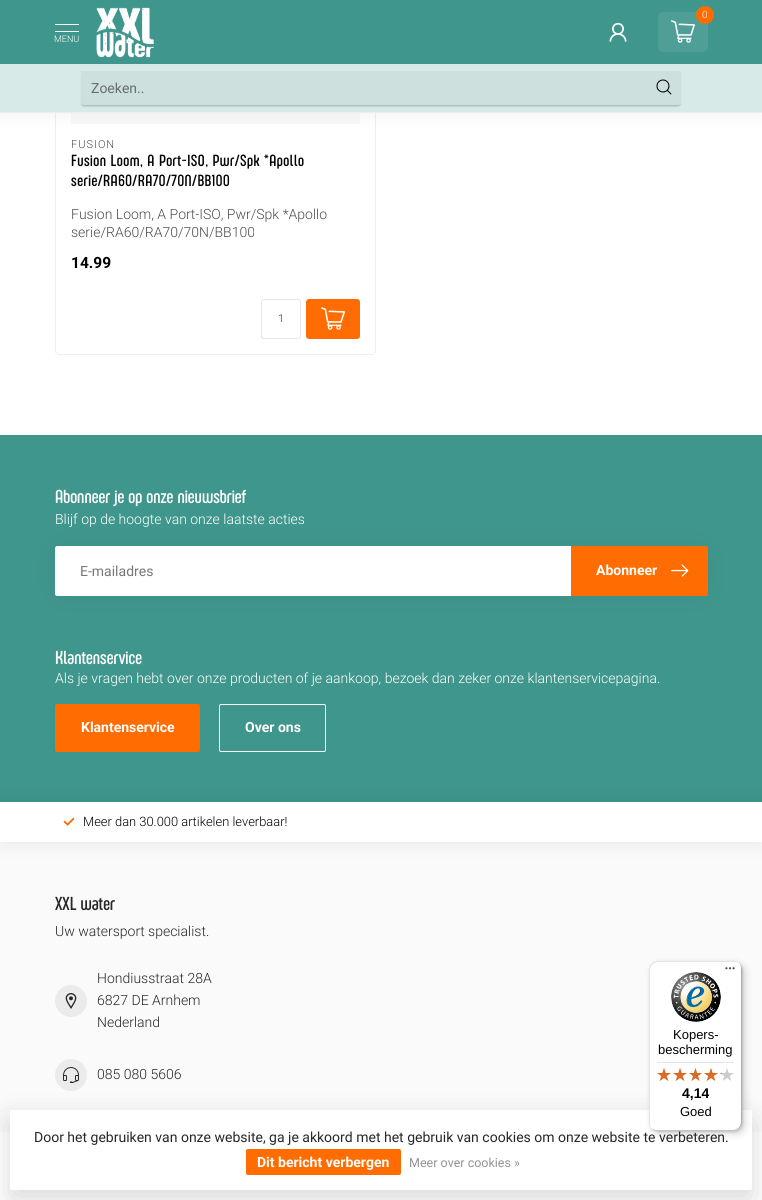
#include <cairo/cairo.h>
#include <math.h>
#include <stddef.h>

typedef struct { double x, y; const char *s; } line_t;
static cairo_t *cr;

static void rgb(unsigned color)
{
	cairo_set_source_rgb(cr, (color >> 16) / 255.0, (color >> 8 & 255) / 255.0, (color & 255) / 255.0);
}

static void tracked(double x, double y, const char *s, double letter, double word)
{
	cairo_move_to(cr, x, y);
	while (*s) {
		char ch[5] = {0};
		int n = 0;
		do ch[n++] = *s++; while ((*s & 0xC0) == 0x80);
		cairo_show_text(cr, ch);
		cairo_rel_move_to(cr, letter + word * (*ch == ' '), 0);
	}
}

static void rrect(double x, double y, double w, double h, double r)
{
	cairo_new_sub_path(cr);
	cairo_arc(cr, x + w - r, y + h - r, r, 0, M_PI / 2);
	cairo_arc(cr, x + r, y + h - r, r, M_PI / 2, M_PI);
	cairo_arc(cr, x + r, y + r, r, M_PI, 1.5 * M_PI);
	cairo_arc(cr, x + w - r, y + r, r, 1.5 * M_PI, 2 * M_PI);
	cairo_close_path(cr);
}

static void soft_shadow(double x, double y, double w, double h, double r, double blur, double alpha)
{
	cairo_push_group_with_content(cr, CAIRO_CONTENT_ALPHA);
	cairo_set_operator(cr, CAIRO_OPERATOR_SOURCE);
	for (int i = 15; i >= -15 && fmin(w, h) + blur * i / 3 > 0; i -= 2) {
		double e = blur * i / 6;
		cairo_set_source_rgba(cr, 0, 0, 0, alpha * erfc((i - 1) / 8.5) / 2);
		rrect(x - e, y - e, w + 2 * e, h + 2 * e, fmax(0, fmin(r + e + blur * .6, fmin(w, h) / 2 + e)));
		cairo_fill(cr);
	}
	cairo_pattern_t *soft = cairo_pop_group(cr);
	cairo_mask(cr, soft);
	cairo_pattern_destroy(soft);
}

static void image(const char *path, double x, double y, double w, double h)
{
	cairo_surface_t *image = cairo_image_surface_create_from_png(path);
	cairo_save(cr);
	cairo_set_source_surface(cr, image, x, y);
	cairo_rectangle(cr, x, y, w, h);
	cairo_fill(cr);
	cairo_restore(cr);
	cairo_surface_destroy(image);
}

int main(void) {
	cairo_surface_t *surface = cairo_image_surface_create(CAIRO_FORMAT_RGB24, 762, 1200);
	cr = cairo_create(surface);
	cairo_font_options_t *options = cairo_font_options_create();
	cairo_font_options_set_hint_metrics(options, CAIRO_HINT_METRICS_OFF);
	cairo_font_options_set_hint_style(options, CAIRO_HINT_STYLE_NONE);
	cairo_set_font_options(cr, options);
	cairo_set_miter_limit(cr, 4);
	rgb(0xffffff);
	cairo_paint(cr);
	rrect(55.5, -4.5, 320, 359, 3.5);
	rgb(0xeeeeee);
	cairo_set_line_width(cr, 1);
	cairo_stroke(cr);
	rgb(0xf9f9f9);
	cairo_rectangle(cr, 71, 113, 289, 11);
	cairo_fill(cr);
	rgb(0x000000);
	soft_shadow(0, 0, 762, 113, 0, 10, 0.07);
	rgb(0x3f968c);
	cairo_rectangle(cr, 0, 0, 762, 64);
	cairo_fill(cr);
	rgb(0x4f9f96);
	rrect(658, 12, 50, 40, 5);
	cairo_fill(cr);
	rgb(0xff6c01);
	cairo_arc(cr, 705, 15, 9, 0, 2 * M_PI);
	cairo_fill(cr);
	image("img/1.png", 671, 20, 24, 23);
	image("img/2.png", 609, 22, 18, 20);
	rgb(0xffffff);
	cairo_rectangle(cr, 55, 24, 24, 1);
	cairo_fill(cr);
	cairo_rectangle(cr, 55, 31, 24, 1);
	cairo_fill(cr);
	image("img/3.png", 96, 7, 58, 51);
	cairo_rectangle(cr, 0, 64, 762, 48);
	cairo_fill(cr);
	rgb(0xeeeeee);
	cairo_rectangle(cr, 0, 112, 762, 1);
	cairo_fill(cr);
	cairo_save(cr);
	cairo_set_fill_rule(cr, CAIRO_FILL_RULE_EVEN_ODD);
	cairo_new_path(cr);
	cairo_move_to(cr, 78, 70);
	cairo_line_to(cr, 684, 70);
	cairo_line_to(cr, 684, 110);
	cairo_line_to(cr, 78, 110);
	cairo_close_path(cr);
	cairo_move_to(cr, 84, 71);
	cairo_line_to(cr, 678, 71);
	cairo_curve_to(cr, 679.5, 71, 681, 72.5, 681, 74);
	cairo_line_to(cr, 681, 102);
	cairo_curve_to(cr, 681, 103.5, 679.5, 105, 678, 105);
	cairo_line_to(cr, 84, 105);
	cairo_curve_to(cr, 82.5, 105, 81, 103.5, 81, 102);
	cairo_line_to(cr, 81, 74);
	cairo_curve_to(cr, 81, 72.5, 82.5, 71, 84, 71);
	cairo_close_path(cr);
	cairo_clip(cr);
	rgb(0x9b9b9b);
	soft_shadow(82, 74, 598, 32, 2, 1, 0.75);
	cairo_restore(cr);
	cairo_set_source_rgba(cr, 0, 0, 0, 0.05);
	cairo_rectangle(cr, 81, 71, 600, 34);
	cairo_fill(cr);
	cairo_set_source_rgba(cr, 0.247, 0.588, 0.549, 0.2);
	cairo_rectangle(cr, 0, 64, 762, 48);
	cairo_fill(cr);
	image("img/4.png", 656, 79, 16, 16);
	rrect(261.5, 299.5, 39, 39, 2.5);
	rgb(0xe7e7e7);
	cairo_stroke(cr);
	rgb(0xff6c01);
	rrect(306, 299, 54, 40, 3);
	cairo_fill(cr);
	image("img/5.png", 321, 307, 24, 23);
	rgb(0xfafafa);
	cairo_rectangle(cr, 0, 842, 762, 290);
	cairo_fill(cr);
	rgb(0x3f968c);
	cairo_rectangle(cr, 0, 435, 762, 367);
	cairo_fill(cr);
	rgb(0x000000);
	soft_shadow(65, 556, 633, 30, 0, 15, 0.1);
	rgb(0xffffff);
	cairo_new_path(cr);
	cairo_move_to(cr, 57, 546);
	cairo_line_to(cr, 571, 546);
	cairo_line_to(cr, 571, 596);
	cairo_line_to(cr, 57, 596);
	cairo_curve_to(cr, 56, 596, 55, 595, 55, 594);
	cairo_line_to(cr, 55, 548);
	cairo_curve_to(cr, 55, 547, 56, 546, 57, 546);
	cairo_close_path(cr);
	cairo_fill(cr);
	rgb(0xff6c01);
	cairo_new_path(cr);
	cairo_move_to(cr, 571, 546);
	cairo_line_to(cr, 706, 546);
	cairo_curve_to(cr, 707, 546, 708, 547, 708, 548);
	cairo_line_to(cr, 708, 594);
	cairo_curve_to(cr, 708, 595, 707, 596, 706, 596);
	cairo_line_to(cr, 571, 596);
	cairo_close_path(cr);
	cairo_fill(cr);
	image("img/6.png", 671, 564, 18, 13);
	rrect(55, 704, 145, 48, 2);
	cairo_fill(cr);
	rrect(219.5, 704.5, 106, 47, 1.5);
	rgb(0xffffff);
	cairo_stroke(cr);
	rgb(0x000000);
	soft_shadow(0, 802, 762, 40, 0, 11, 0.08);
	rgb(0xffffff);
	cairo_rectangle(cr, 0, 802, 762, 40);
	cairo_fill(cr);
	image("img/7.png", 63, 817, 12, 9);
	rgb(0xebebeb);
	cairo_arc(cr, 71, 1001, 16, 0, 2 * M_PI);
	cairo_fill(cr);
	image("img/8.png", 65, 993, 12, 16);
	cairo_arc(cr, 71, 1075, 16, 0, 2 * M_PI);
	cairo_fill(cr);
	image("img/9.png", 63, 1067, 16, 16);
	rgb(0x000000);
	soft_shadow(10, 1120, 742, 80, 2, 15, 0.15);
	rgb(0xffffff);
	rrect(10, 1110, 742, 80, 2);
	cairo_fill(cr);
	rgb(0x000000);
	soft_shadow(652, 964, 93, 170, 8, 4, 0.15);
	soft_shadow(650, 962, 93, 170, 8, 1, 0.15);
	rgb(0xffffff);
	rrect(649, 961, 93, 170, 8);
	cairo_fill(cr);
	rgb(0xe5e5e5);
	cairo_new_path(cr);
	cairo_move_to(cr, 658, 962);
	cairo_line_to(cr, 735, 962);
	cairo_curve_to(cr, 737, 962, 739, 963, 741, 965);
	cairo_curve_to(cr, 739, 963, 737, 961, 734, 961);
	cairo_line_to(cr, 657, 961);
	cairo_curve_to(cr, 653, 961, 649, 965, 649, 969);
	cairo_line_to(cr, 649, 1123);
	cairo_curve_to(cr, 649, 1126, 651, 1128, 653, 1130);
	cairo_curve_to(cr, 651, 1128, 650, 1126, 650, 1124);
	cairo_line_to(cr, 650, 970);
	cairo_curve_to(cr, 650, 966, 654, 962, 658, 962);
	cairo_close_path(cr);
	cairo_fill(cr);
	rgb(0xcccccc);
	cairo_new_path(cr);
	cairo_move_to(cr, 650, 1127);
	cairo_curve_to(cr, 652, 1129, 654, 1131, 657, 1131);
	cairo_line_to(cr, 734, 1131);
	cairo_curve_to(cr, 738, 1131, 742, 1127, 742, 1123);
	cairo_line_to(cr, 742, 969);
	cairo_curve_to(cr, 742, 966, 740, 964, 738, 962);
	cairo_curve_to(cr, 740, 964, 741, 966, 741, 968);
	cairo_line_to(cr, 741, 1122);
	cairo_curve_to(cr, 741, 1126, 737, 1130, 733, 1130);
	cairo_line_to(cr, 656, 1130);
	cairo_curve_to(cr, 654, 1130, 652, 1129, 650, 1127);
	cairo_close_path(cr);
	cairo_fill(cr);
	cairo_set_source_rgba(cr, 0.196, 0.196, 0.196, 0.2);
	cairo_new_path(cr);
	cairo_move_to(cr, 651, 1128);
	cairo_curve_to(cr, 652, 1130, 655, 1131, 657, 1131);
	cairo_line_to(cr, 734, 1131);
	cairo_curve_to(cr, 738, 1131, 742, 1127, 742, 1123);
	cairo_line_to(cr, 742, 969);
	cairo_curve_to(cr, 742, 967, 741, 964, 739, 963);
	cairo_curve_to(cr, 740, 964, 741, 966, 741, 968);
	cairo_line_to(cr, 741, 1122);
	cairo_curve_to(cr, 741, 1127, 738, 1130, 733, 1130);
	cairo_line_to(cr, 656, 1130);
	cairo_curve_to(cr, 654, 1130, 652, 1129, 651, 1128);
	cairo_close_path(cr);
	cairo_fill(cr);
	image("img/10.png", 725, 967, 10, 3);
	cairo_set_source_rgba(cr, 1, 1, 1, 0.3);
	cairo_new_path(cr);
	cairo_move_to(cr, 651, 1128);
	cairo_curve_to(cr, 652, 1130, 655, 1131, 657, 1131);
	cairo_line_to(cr, 734, 1131);
	cairo_curve_to(cr, 738, 1131, 742, 1127, 742, 1123);
	cairo_line_to(cr, 742, 1122);
	cairo_curve_to(cr, 742, 1127, 738, 1130, 734, 1130);
	cairo_line_to(cr, 656, 1130);
	cairo_curve_to(cr, 654, 1130, 652, 1129, 651, 1128);
	cairo_close_path(cr);
	cairo_fill(cr);
	image("img/11.png", 671, 972, 50, 50);
	rgb(0xe5e5e5);
	cairo_rectangle(cr, 657, 1062, 77, 1);
	cairo_fill(cr);
	image("img/12.png", 657, 1068, 14, 13);
	image("img/12.png", 673, 1068, 14, 13);
	image("img/13.png", 689, 1068, 13, 13);
	image("img/12.png", 704, 1068, 14, 13);
	image("img/12.png", 720, 1068, 14, 13);
	image("img/14.png", 657, 1068, 14, 13);
	image("img/14.png", 673, 1068, 14, 13);
	image("img/15.png", 689, 1068, 13, 13);
	image("img/14.png", 704, 1068, 14, 13);
	image("img/16.png", 720, 1073, 2, 2);
	rgb(0xff6c01);
	rrect(246, 1149, 155, 26, 2);
	cairo_fill(cr);
	cairo_select_font_face(cr, "Roboto Light", CAIRO_FONT_SLANT_NORMAL, CAIRO_FONT_WEIGHT_NORMAL);
	cairo_set_font_size(cr, 10);
	rgb(0xffffff);
	cairo_move_to(cr, 702, 18);
	cairo_show_text(cr, "0");
	cairo_set_font_size(cr, 9);
	cairo_move_to(cr, 54, 42);
	cairo_show_text(cr, "MENU");
	cairo_select_font_face(cr, "Roboto", CAIRO_FONT_SLANT_NORMAL, CAIRO_FONT_WEIGHT_NORMAL);
	cairo_set_font_size(cr, 14);
	rgb(0x656e6d);
	cairo_move_to(cr, 91, 93);
	cairo_show_text(cr, "Zoeken..");
	cairo_select_font_face(cr, "Roboto Light", CAIRO_FONT_SLANT_NORMAL, CAIRO_FONT_WEIGHT_NORMAL);
	cairo_set_font_size(cr, 11);
	rgb(0x4d4d4d);
	tracked(71, 148, "FUSION", 1, 0);
	cairo_select_font_face(cr, "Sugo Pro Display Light", CAIRO_FONT_SLANT_NORMAL, CAIRO_FONT_WEIGHT_NORMAL);
	cairo_set_font_size(cr, 16.75);
	rgb(0x000000);
	tracked(71, 166, "Fusion Loom, A Port-ISO, Pwr/Spk *Apollo", 0.5, 0);
	tracked(71, 186, "serie/RA60/RA70/70N/BB100", 0.5, 0);
	cairo_select_font_face(cr, "Roboto Light", CAIRO_FONT_SLANT_NORMAL, CAIRO_FONT_WEIGHT_NORMAL);
	cairo_set_font_size(cr, 14);
	rgb(0x4d4d4d);
	cairo_move_to(cr, 71, 219);
	cairo_show_text(cr, "Fusion Loom, A Port-ISO, Pwr/Spk *Apollo");
	cairo_move_to(cr, 71, 237);
	cairo_show_text(cr, "serie/RA60/RA70/70N/BB100");
	cairo_select_font_face(cr, "Roboto", CAIRO_FONT_SLANT_NORMAL, CAIRO_FONT_WEIGHT_BOLD);
	cairo_set_font_size(cr, 15.5);
	rgb(0x000000);
	cairo_move_to(cr, 71, 268);
	cairo_show_text(cr, "14.99");
	cairo_select_font_face(cr, "Roboto", CAIRO_FONT_SLANT_NORMAL, CAIRO_FONT_WEIGHT_NORMAL);
	cairo_set_font_size(cr, 11);
	rgb(0x777777);
	cairo_move_to(cr, 278, 322);
	cairo_show_text(cr, "1");
	cairo_select_font_face(cr, "Sugo Pro Display Light", CAIRO_FONT_SLANT_NORMAL, CAIRO_FONT_WEIGHT_NORMAL);
	cairo_set_font_size(cr, 19.5);
	rgb(0xffffff);
	cairo_move_to(cr, 55, 503);
	cairo_show_text(cr, "Abonneer je op onze nieuwsbrief");
	cairo_select_font_face(cr, "Roboto Light", CAIRO_FONT_SLANT_NORMAL, CAIRO_FONT_WEIGHT_NORMAL);
	cairo_set_font_size(cr, 14);
	cairo_move_to(cr, 55, 524);
	cairo_show_text(cr, "Blijf op de hoogte van onze laatste acties");
	cairo_select_font_face(cr, "Roboto", CAIRO_FONT_SLANT_NORMAL, CAIRO_FONT_WEIGHT_NORMAL);
	rgb(0x777777);
	cairo_move_to(cr, 80, 576);
	cairo_show_text(cr, "E-mailadres");
	cairo_select_font_face(cr, "Roboto", CAIRO_FONT_SLANT_NORMAL, CAIRO_FONT_WEIGHT_BOLD);
	rgb(0xffffff);
	cairo_move_to(cr, 596, 575);
	cairo_show_text(cr, "Abonneer");
	cairo_select_font_face(cr, "Sugo Pro Display Light", CAIRO_FONT_SLANT_NORMAL, CAIRO_FONT_WEIGHT_NORMAL);
	cairo_set_font_size(cr, 19.5);
	cairo_move_to(cr, 55, 664);
	cairo_show_text(cr, "Klantenservice");
	cairo_select_font_face(cr, "Roboto Light", CAIRO_FONT_SLANT_NORMAL, CAIRO_FONT_WEIGHT_NORMAL);
	cairo_set_font_size(cr, 14);
	cairo_move_to(cr, 55, 683);
	cairo_show_text(cr, "Als je vragen hebt over onze producten of je aankoop, bezoek dan zeker onze klantenservicepagina.");
	cairo_select_font_face(cr, "Roboto", CAIRO_FONT_SLANT_NORMAL, CAIRO_FONT_WEIGHT_BOLD);
	cairo_move_to(cr, 81, 732);
	cairo_show_text(cr, "Klantenservice");
	cairo_move_to(cr, 245, 732);
	cairo_show_text(cr, "Over ons");
	cairo_select_font_face(cr, "Roboto Light", CAIRO_FONT_SLANT_NORMAL, CAIRO_FONT_WEIGHT_NORMAL);
	cairo_set_font_size(cr, 12.9);
	rgb(0x000000);
	cairo_move_to(cr, 83, 826);
	cairo_show_text(cr, "Meer dan 30.000 artikelen leverbaar!");
	cairo_select_font_face(cr, "Sugo Pro Display Light", CAIRO_FONT_SLANT_NORMAL, CAIRO_FONT_WEIGHT_NORMAL);
	cairo_set_font_size(cr, 19.5);
	rgb(0x272727);
	cairo_move_to(cr, 55, 910);
	cairo_show_text(cr, "XXL water");
	cairo_select_font_face(cr, "Roboto Light", CAIRO_FONT_SLANT_NORMAL, CAIRO_FONT_WEIGHT_NORMAL);
	cairo_set_font_size(cr, 14);
	{
		static const line_t items[] = {
			{55, 936, "Uw watersport specialist."},
			{97, 983, "Hondiusstraat 28A"},
			{97, 1005, "6827 DE Arnhem"},
			{97, 1027, "Nederland"},
			{97, 1079, "085 080 5606"},
		};
		for (size_t i = 0; i < sizeof items / sizeof *items; i++) {
			cairo_move_to(cr, items[i].x, items[i].y);
			cairo_show_text(cr, items[i].s);
		}
	}
	cairo_select_font_face(cr, "Liberation Sans", CAIRO_FONT_SLANT_NORMAL, CAIRO_FONT_WEIGHT_NORMAL);
	cairo_set_font_size(cr, 13);
	rgb(0x000000);
	cairo_move_to(cr, 673, 1039);
	cairo_show_text(cr, "Kopers-");
	cairo_move_to(cr, 658, 1054);
	cairo_show_text(cr, "bescherming");
	cairo_select_font_face(cr, "Liberation Sans", CAIRO_FONT_SLANT_NORMAL, CAIRO_FONT_WEIGHT_BOLD);
	cairo_set_font_size(cr, 14);
	cairo_move_to(cr, 682, 1098);
	cairo_show_text(cr, "4,14");
	cairo_select_font_face(cr, "Liberation Sans", CAIRO_FONT_SLANT_NORMAL, CAIRO_FONT_WEIGHT_NORMAL);
	cairo_set_font_size(cr, 13);
	cairo_move_to(cr, 680, 1116);
	cairo_show_text(cr, "Goed");
	cairo_select_font_face(cr, "Roboto", CAIRO_FONT_SLANT_NORMAL, CAIRO_FONT_WEIGHT_NORMAL);
	cairo_set_font_size(cr, 14);
	rgb(0x272727);
	cairo_move_to(cr, 34, 1142);
	cairo_show_text(cr, "Door het gebruiken van onze website, ga je akkoord met het gebruik van cookies om onze website te verbeteren.");
	cairo_select_font_face(cr, "Roboto", CAIRO_FONT_SLANT_NORMAL, CAIRO_FONT_WEIGHT_BOLD);
	rgb(0xffffff);
	cairo_move_to(cr, 257, 1167);
	cairo_show_text(cr, "Dit bericht verbergen");
	cairo_select_font_face(cr, "Roboto", CAIRO_FONT_SLANT_NORMAL, CAIRO_FONT_WEIGHT_NORMAL);
	cairo_set_font_size(cr, 12.5);
	rgb(0x949494);
	cairo_move_to(cr, 409, 1167);
	cairo_show_text(cr, "Meer over cookies »");
	cairo_surface_write_to_png(surface, "page.png");
	cairo_font_options_destroy(options);
	cairo_destroy(cr);
	cairo_surface_destroy(surface);
	return 0;
}
